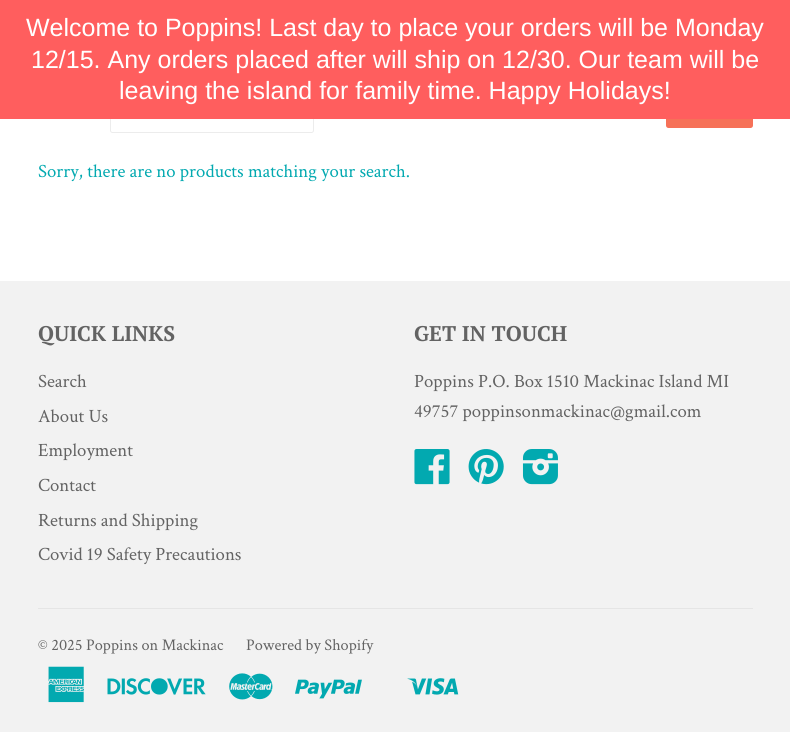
#include <cairo/cairo.h>
#include <math.h>
#include <stddef.h>

typedef struct { double x, y; const char *s; } line_t;
static cairo_t *cr;

static void rgb(unsigned color)
{
	cairo_set_source_rgb(cr, (color >> 16) / 255.0, (color >> 8 & 255) / 255.0, (color & 255) / 255.0);
}

static void rrect(double x, double y, double w, double h, double r)
{
	cairo_new_sub_path(cr);
	cairo_arc(cr, x + w - r, y + h - r, r, 0, M_PI / 2);
	cairo_arc(cr, x + r, y + h - r, r, M_PI / 2, M_PI);
	cairo_arc(cr, x + r, y + r, r, M_PI, 1.5 * M_PI);
	cairo_arc(cr, x + w - r, y + r, r, 1.5 * M_PI, 2 * M_PI);
	cairo_close_path(cr);
}

static void image(const char *path, double x, double y, double w, double h)
{
	cairo_surface_t *image = cairo_image_surface_create_from_png(path);
	cairo_save(cr);
	cairo_set_source_surface(cr, image, x, y);
	cairo_rectangle(cr, x, y, w, h);
	cairo_fill(cr);
	cairo_restore(cr);
	cairo_surface_destroy(image);
}

int main(void) {
	cairo_surface_t *surface = cairo_image_surface_create(CAIRO_FORMAT_RGB24, 790, 732);
	cr = cairo_create(surface);
	cairo_font_options_t *options = cairo_font_options_create();
	cairo_font_options_set_hint_metrics(options, CAIRO_HINT_METRICS_OFF);
	cairo_font_options_set_hint_style(options, CAIRO_HINT_STYLE_NONE);
	cairo_set_font_options(cr, options);
	cairo_set_miter_limit(cr, 4);
	rgb(0xffffff);
	cairo_paint(cr);
	rrect(110.5, 81.5, 203, 51, 2);
	rgb(0xececec);
	cairo_set_line_width(cr, 1);
	cairo_stroke(cr);
	rgb(0xf67158);
	rrect(666, 81, 87, 47, 2.5);
	cairo_fill(cr);
	rgb(0xff5e5e);
	cairo_rectangle(cr, 0, 0, 790, 119);
	cairo_fill(cr);
	rgb(0xf2f2f2);
	cairo_rectangle(cr, 0, 281, 790, 451);
	cairo_fill(cr);
	image("img/1.png", 414, 449, 36, 36);
	image("img/2.png", 468, 449, 36, 36);
	image("img/3.png", 522, 449, 36, 36);
	rgb(0xe5e5e5);
	cairo_rectangle(cr, 38, 608, 715, 1);
	cairo_fill(cr);
	image("img/4.png", 48, 666, 36, 37);
	image("img/5.png", 107, 678, 99, 17);
	image("img/6.png", 229, 673, 44, 27);
	image("img/7.png", 295, 679, 67, 20);
	image("img/8.png", 407, 678, 52, 17);
	cairo_select_font_face(cr, "Liberation Sans", CAIRO_FONT_SLANT_NORMAL, CAIRO_FONT_WEIGHT_NORMAL);
	cairo_set_font_size(cr, 25);
	rgb(0xffffff);
	{
		static const line_t items[] = {
			{26, 36, "Welcome to Poppins! Last day to place your orders will be Monday"},
			{31, 68, "12/15. Any orders placed after will ship on 12/30. Our team will be"},
			{119, 99, "leaving the island for family time. Happy Holidays!"},
		};
		for (size_t i = 0; i < sizeof items / sizeof *items; i++) {
			cairo_move_to(cr, items[i].x, items[i].y);
			cairo_show_text(cr, items[i].s);
		}
	}
	cairo_select_font_face(cr, "Crimson Text", CAIRO_FONT_SLANT_NORMAL, CAIRO_FONT_WEIGHT_NORMAL);
	cairo_set_font_size(cr, 18.75);
	rgb(0x02a9b0);
	cairo_move_to(cr, 38, 177);
	cairo_show_text(cr, "Sorry, there are no products matching your search.");
	cairo_select_font_face(cr, "PT Serif", CAIRO_FONT_SLANT_NORMAL, CAIRO_FONT_WEIGHT_BOLD);
	cairo_set_font_size(cr, 21.25);
	rgb(0x636363);
	cairo_move_to(cr, 38, 341);
	cairo_show_text(cr, "QUICK LINKS");
	cairo_select_font_face(cr, "Crimson Text", CAIRO_FONT_SLANT_NORMAL, CAIRO_FONT_WEIGHT_NORMAL);
	cairo_set_font_size(cr, 18.75);
	{
		static const line_t items[] = {
			{38, 387, "Search"},
			{38, 422, "About Us"},
			{38, 456, "Employment"},
			{38, 491, "Contact"},
			{38, 526, "Returns and Shipping"},
			{38, 560, "Covid 19 Safety Precautions"},
		};
		for (size_t i = 0; i < sizeof items / sizeof *items; i++) {
			cairo_move_to(cr, items[i].x, items[i].y);
			cairo_show_text(cr, items[i].s);
		}
	}
	cairo_select_font_face(cr, "PT Serif", CAIRO_FONT_SLANT_NORMAL, CAIRO_FONT_WEIGHT_BOLD);
	cairo_set_font_size(cr, 21.25);
	cairo_move_to(cr, 414, 341);
	cairo_show_text(cr, "GET IN TOUCH");
	cairo_select_font_face(cr, "Crimson Text", CAIRO_FONT_SLANT_NORMAL, CAIRO_FONT_WEIGHT_NORMAL);
	cairo_set_font_size(cr, 18.75);
	cairo_move_to(cr, 414, 387);
	cairo_show_text(cr, "Poppins P.O. Box 1510 Mackinac Island MI");
	cairo_move_to(cr, 414, 417);
	cairo_show_text(cr, "49757 poppinsonmackinac@gmail.com");
	cairo_set_font_size(cr, 16.25);
	cairo_move_to(cr, 38, 650);
	cairo_show_text(cr, "© 2025 Poppins on Mackinac");
	cairo_move_to(cr, 246, 650);
	cairo_show_text(cr, "Powered by Shopify");
	cairo_surface_write_to_png(surface, "page.png");
	cairo_font_options_destroy(options);
	cairo_destroy(cr);
	cairo_surface_destroy(surface);
	return 0;
}
